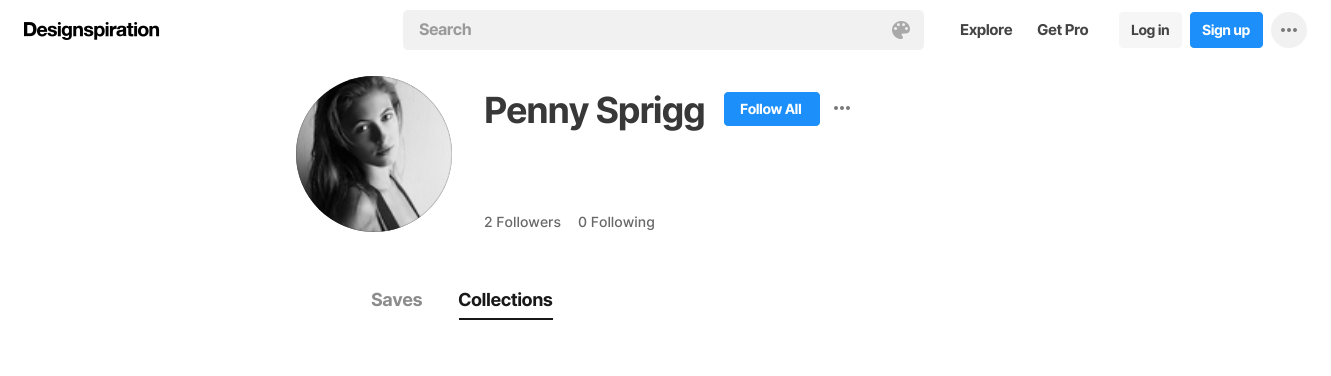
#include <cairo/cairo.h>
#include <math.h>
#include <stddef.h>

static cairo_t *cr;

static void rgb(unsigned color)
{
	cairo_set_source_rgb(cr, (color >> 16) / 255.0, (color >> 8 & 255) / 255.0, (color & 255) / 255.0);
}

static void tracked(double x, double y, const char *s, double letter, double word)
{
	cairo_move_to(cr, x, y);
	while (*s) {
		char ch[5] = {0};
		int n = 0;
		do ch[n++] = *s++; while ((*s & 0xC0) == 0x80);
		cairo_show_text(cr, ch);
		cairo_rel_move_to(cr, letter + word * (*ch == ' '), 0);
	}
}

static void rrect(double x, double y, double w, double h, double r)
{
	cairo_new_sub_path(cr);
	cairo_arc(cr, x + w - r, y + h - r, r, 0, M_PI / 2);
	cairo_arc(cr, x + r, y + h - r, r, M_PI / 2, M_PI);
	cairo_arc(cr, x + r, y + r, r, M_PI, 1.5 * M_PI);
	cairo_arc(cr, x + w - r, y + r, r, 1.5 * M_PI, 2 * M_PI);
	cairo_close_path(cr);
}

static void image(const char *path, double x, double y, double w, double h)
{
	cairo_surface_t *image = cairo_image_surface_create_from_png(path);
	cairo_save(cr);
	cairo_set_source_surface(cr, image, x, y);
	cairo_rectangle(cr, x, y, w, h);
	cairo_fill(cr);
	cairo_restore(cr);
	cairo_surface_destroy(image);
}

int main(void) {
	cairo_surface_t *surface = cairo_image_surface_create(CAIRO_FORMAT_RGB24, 1331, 376);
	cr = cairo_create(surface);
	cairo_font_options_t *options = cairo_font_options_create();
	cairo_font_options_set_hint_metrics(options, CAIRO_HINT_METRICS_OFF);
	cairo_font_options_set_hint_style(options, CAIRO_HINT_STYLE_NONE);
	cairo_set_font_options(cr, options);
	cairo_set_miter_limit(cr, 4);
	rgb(0xffffff);
	cairo_paint(cr);
	image("img/1.png", 24, 22, 136, 18);
	rgb(0xf1f1f1);
	rrect(403, 10, 521, 40, 5);
	cairo_fill(cr);
	image("img/2.png", 892, 21, 18, 18);
	rgb(0xf6f6f6);
	rrect(1119, 12, 63, 36, 4);
	cairo_fill(cr);
	rgb(0x1d8ffb);
	rrect(1190, 12, 73, 36, 4);
	cairo_fill(cr);
	rgb(0xf1f1f1);
	cairo_arc(cr, 1289, 30, 18, 0, 2 * M_PI);
	cairo_fill(cr);
	image("img/3.png", 1281, 28, 16, 4);
	rgb(0x727576);
	cairo_arc(cr, 374, 154, 78, 0, 2 * M_PI);
	cairo_fill(cr);
	image("img/4.png", 296, 76, 156, 156);
	cairo_arc(cr, 374, 154, 77.5, 0, 2 * M_PI);
	cairo_set_source_rgba(cr, 0, 0, 0, 0.1);
	cairo_set_line_width(cr, 1);
	cairo_stroke(cr);
	rgb(0x1d8ffb);
	rrect(724, 92, 96, 34, 4);
	cairo_fill(cr);
	image("img/5.png", 834, 106, 16, 4);
	rgb(0x181818);
	cairo_rectangle(cr, 459, 318, 94, 2);
	cairo_fill(cr);
	cairo_select_font_face(cr, "Inter", CAIRO_FONT_SLANT_NORMAL, CAIRO_FONT_WEIGHT_BOLD);
	cairo_set_font_size(cr, 16);
	rgb(0x9a9a9a);
	tracked(419, 35, "Search", -0.5, 0);
	cairo_set_font_size(cr, 15);
	rgb(0x444444);
	tracked(960, 35, "Explore", -0.5, 0);
	tracked(1037, 35, "Get Pro", -0.5, 0);
	cairo_set_font_size(cr, 14);
	tracked(1131, 35, "Log in", -0.5, 0);
	rgb(0xffffff);
	tracked(1202, 35, "Sign up", -0.5, 0);
	cairo_set_font_size(cr, 36);
	rgb(0x383838);
	tracked(484, 123, "Penny Sprigg", -1.25, 0);
	cairo_set_font_size(cr, 14);
	rgb(0xffffff);
	tracked(740, 114, "Follow All", -0.5, 0);
	cairo_select_font_face(cr, "Inter Medium", CAIRO_FONT_SLANT_NORMAL, CAIRO_FONT_WEIGHT_NORMAL);
	rgb(0x676767);
	cairo_move_to(cr, 484, 227);
	cairo_show_text(cr, "2 Followers");
	cairo_move_to(cr, 578, 227);
	cairo_show_text(cr, "0 Following");
	cairo_select_font_face(cr, "Inter", CAIRO_FONT_SLANT_NORMAL, CAIRO_FONT_WEIGHT_BOLD);
	cairo_set_font_size(cr, 18);
	rgb(0x8c8c8c);
	tracked(371, 306, "Saves", -0.5, 0);
	rgb(0x181818);
	tracked(458, 306, "Collections", -0.5, 0);
	cairo_surface_write_to_png(surface, "page.png");
	cairo_font_options_destroy(options);
	cairo_destroy(cr);
	cairo_surface_destroy(surface);
	return 0;
}
